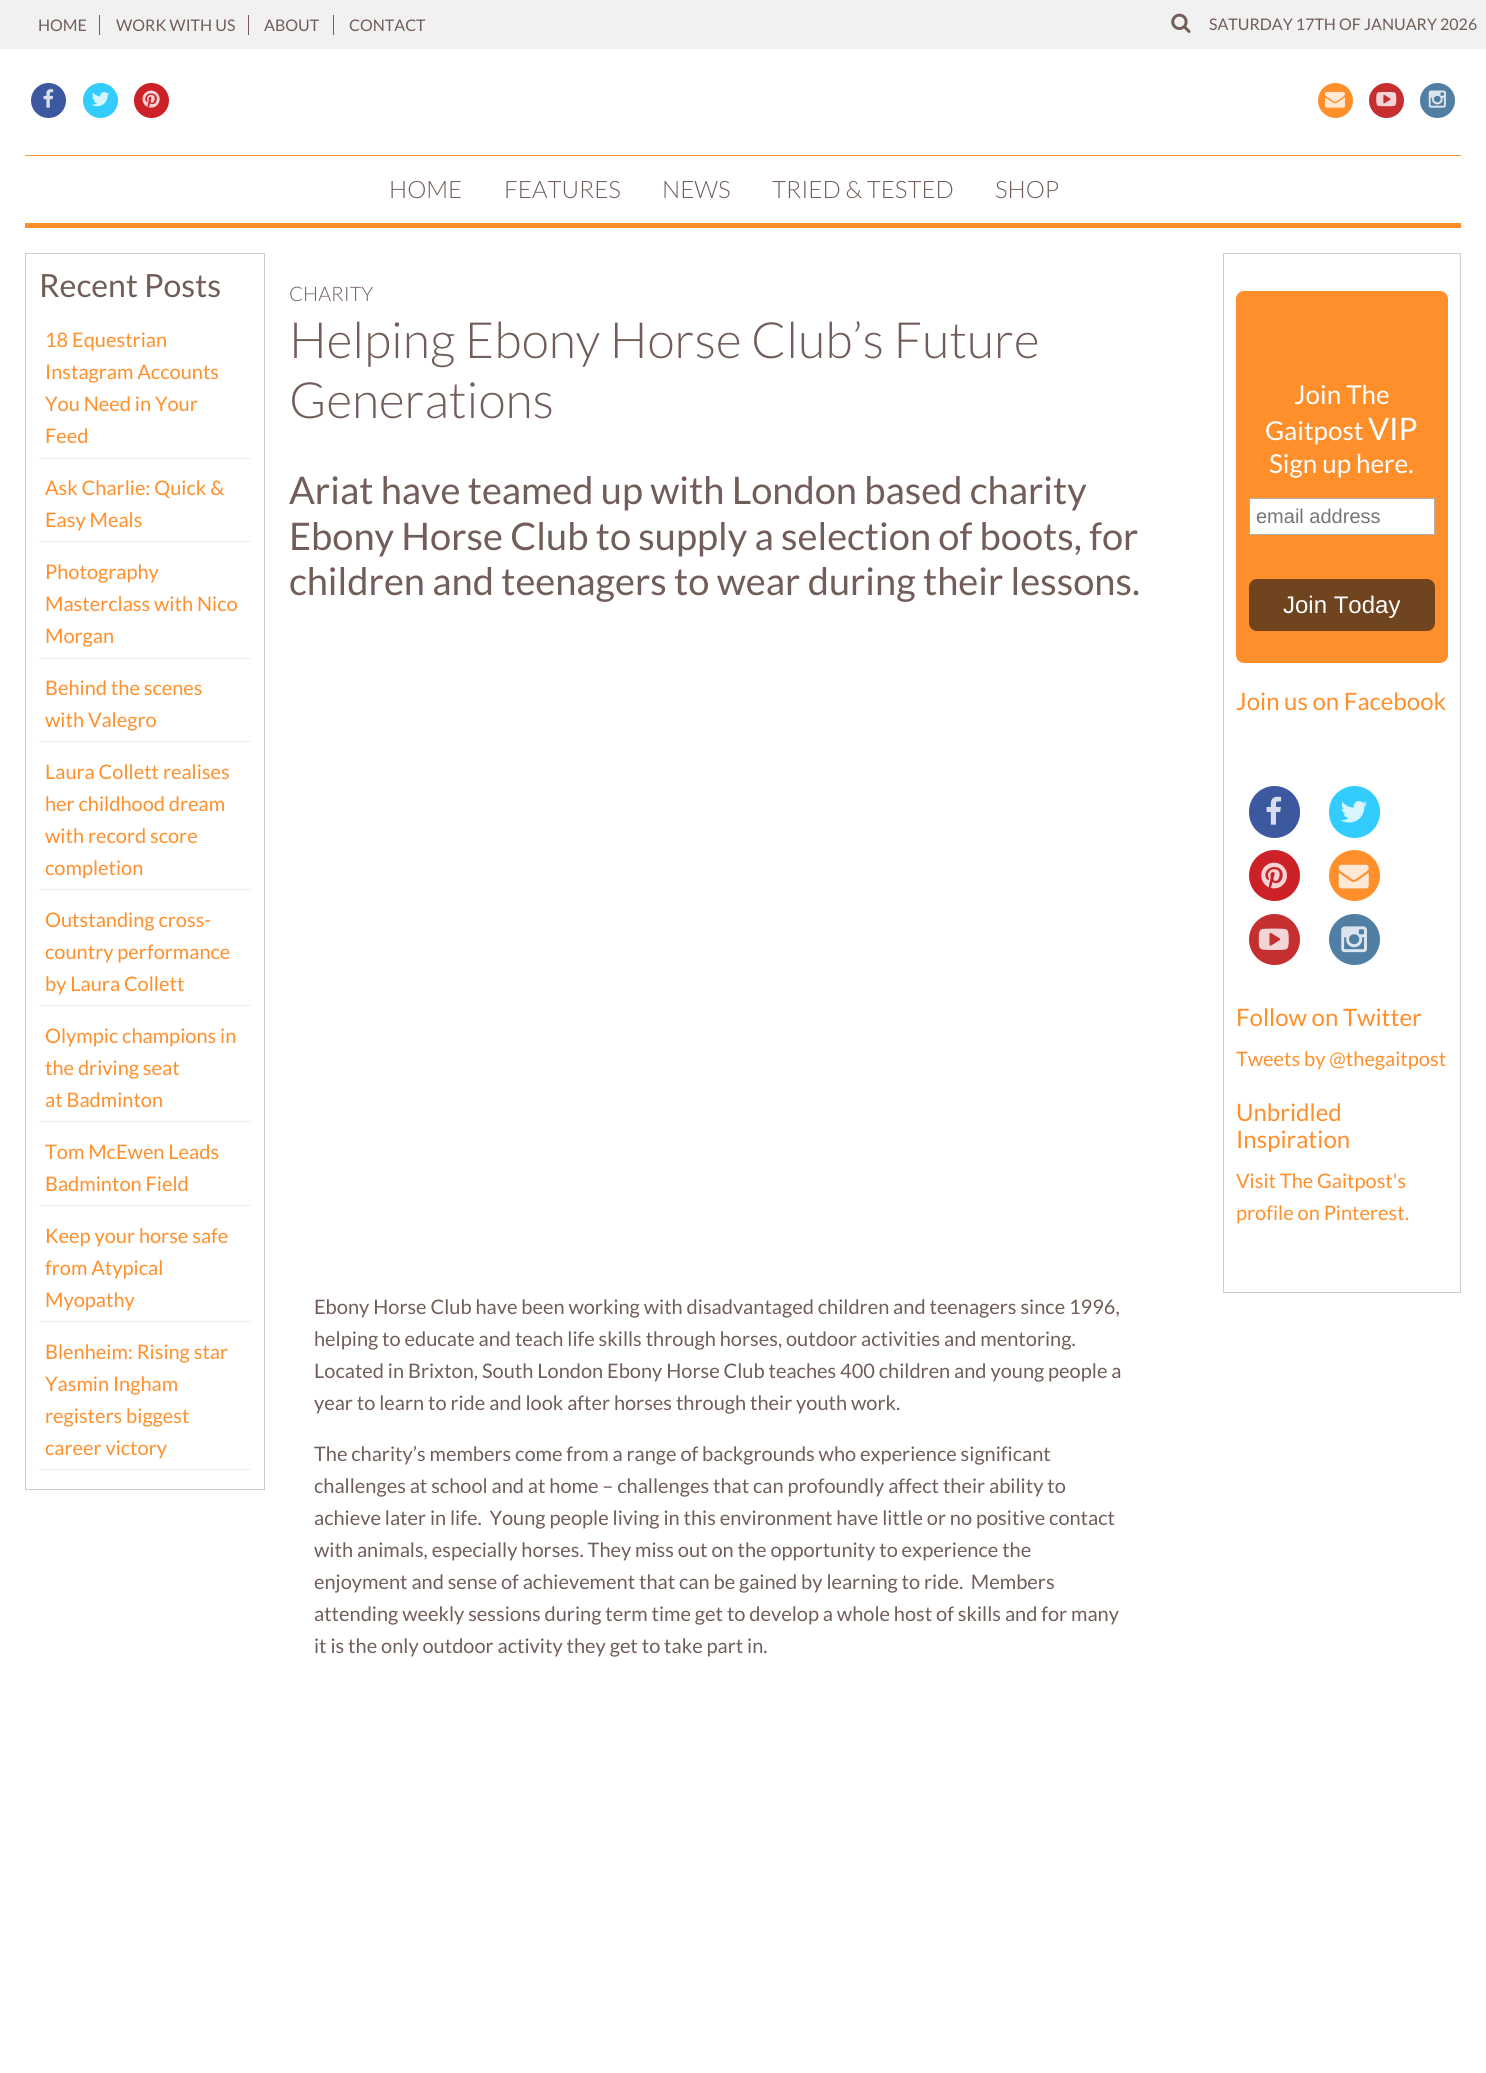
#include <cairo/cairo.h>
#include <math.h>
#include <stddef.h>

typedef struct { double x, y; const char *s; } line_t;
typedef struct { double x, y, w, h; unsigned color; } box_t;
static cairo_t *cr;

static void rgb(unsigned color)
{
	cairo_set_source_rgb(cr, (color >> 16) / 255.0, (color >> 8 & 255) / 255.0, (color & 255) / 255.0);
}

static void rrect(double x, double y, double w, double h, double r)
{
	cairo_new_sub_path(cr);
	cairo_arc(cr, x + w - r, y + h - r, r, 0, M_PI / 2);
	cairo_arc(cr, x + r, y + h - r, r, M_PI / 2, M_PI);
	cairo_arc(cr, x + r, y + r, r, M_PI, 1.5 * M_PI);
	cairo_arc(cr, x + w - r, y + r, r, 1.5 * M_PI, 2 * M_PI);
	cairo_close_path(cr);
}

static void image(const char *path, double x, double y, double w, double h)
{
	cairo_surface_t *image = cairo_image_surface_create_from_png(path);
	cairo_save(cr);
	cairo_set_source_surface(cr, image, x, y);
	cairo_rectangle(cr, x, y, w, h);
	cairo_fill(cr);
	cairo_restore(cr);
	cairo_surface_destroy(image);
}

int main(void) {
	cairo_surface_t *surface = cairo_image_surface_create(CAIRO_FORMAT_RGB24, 1486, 2073);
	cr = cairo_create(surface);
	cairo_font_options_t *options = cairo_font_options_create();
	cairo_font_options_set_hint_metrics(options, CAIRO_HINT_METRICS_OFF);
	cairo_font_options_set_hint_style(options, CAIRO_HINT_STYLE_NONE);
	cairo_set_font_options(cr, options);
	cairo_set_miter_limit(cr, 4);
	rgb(0xffffff);
	cairo_paint(cr);
	{
		static const box_t items[] = {
			{0, 0, 1486, 49, 0xf1f1f1},
			{99, 15, 1, 20, 0x715d59},
			{248, 15, 1, 20, 0x715d59},
			{333, 15, 1, 20, 0x715d59},
		};
		for (size_t i = 0; i < sizeof items / sizeof *items; i++) {
			rgb(items[i].color);
			cairo_rectangle(cr, items[i].x, items[i].y, items[i].w, items[i].h);
			cairo_fill(cr);
		}
	}
	image("img/1.png", 1171, 13, 20, 20);
	rgb(0x3c599f);
	cairo_arc(cr, 48.5, 100.5, 17.5, 0, 2 * M_PI);
	cairo_fill(cr);
	image("img/2.png", 43, 89, 11, 19);
	rgb(0x32ccfe);
	cairo_arc(cr, 100.5, 100.5, 17.5, 0, 2 * M_PI);
	cairo_fill(cr);
	image("img/3.png", 92, 92, 18, 15);
	rgb(0xcc2127);
	cairo_arc(cr, 151.5, 100.5, 17.5, 0, 2 * M_PI);
	cairo_fill(cr);
	image("img/4.png", 142, 90, 18, 18);
	rgb(0xff8f2b);
	cairo_arc(cr, 1335.5, 100.5, 17.5, 0, 2 * M_PI);
	cairo_fill(cr);
	image("img/5.png", 1325, 91, 20, 17);
	rgb(0xc52f30);
	cairo_arc(cr, 1386.5, 100.5, 17.5, 0, 2 * M_PI);
	cairo_fill(cr);
	image("img/6.png", 1376, 92, 21, 15);
	rgb(0x517fa4);
	cairo_arc(cr, 1437.5, 100.5, 17.5, 0, 2 * M_PI);
	cairo_fill(cr);
	image("img/7.png", 1428, 90, 18, 18);
	rgb(0xff8f2b);
	cairo_rectangle(cr, 25, 155, 1436, 1);
	cairo_fill(cr);
	cairo_rectangle(cr, 25, 223, 1436, 5);
	cairo_fill(cr);
	cairo_rectangle(cr, 25.5, 253.5, 239, 1236);
	rgb(0xcccccc);
	cairo_set_line_width(cr, 1);
	cairo_stroke(cr);
	{
		static const box_t items[] = {
			{39, 458, 212, 1, 0xeeeeee},
			{39, 541, 212, 1, 0xeeeeee},
			{39, 658, 212, 1, 0xeeeeee},
			{39, 741, 212, 1, 0xeeeeee},
			{39, 889, 212, 1, 0xeeeeee},
			{39, 1005, 212, 1, 0xeeeeee},
			{39, 1121, 212, 1, 0xeeeeee},
			{39, 1205, 212, 1, 0xeeeeee},
			{39, 1321, 212, 1, 0xeeeeee},
			{39, 1469, 212, 1, 0xeeeeee},
		};
		for (size_t i = 0; i < sizeof items / sizeof *items; i++) {
			rgb(items[i].color);
			cairo_rectangle(cr, items[i].x, items[i].y, items[i].w, items[i].h);
			cairo_fill(cr);
		}
	}
	cairo_rectangle(cr, 1223.5, 253.5, 237, 1039);
	rgb(0xcccccc);
	cairo_stroke(cr);
	rgb(0xff8f2b);
	rrect(1236, 291, 212, 372, 8);
	cairo_fill(cr);
	rgb(0xffffff);
	cairo_rectangle(cr, 1249.5, 498.5, 185, 36);
	cairo_fill_preserve(cr);
	rgb(0xafafaf);
	cairo_stroke(cr);
	rgb(0x6f441f);
	rrect(1249, 579, 186, 52, 8);
	cairo_fill(cr);
	rgb(0x3c599f);
	rrect(1249, 786, 51, 52, 25.5);
	cairo_fill(cr);
	image("img/8.png", 1266, 796, 16, 29);
	rgb(0x32ccfe);
	rrect(1329, 786, 51, 52, 25.5);
	cairo_fill(cr);
	image("img/9.png", 1341, 801, 26, 22);
	rgb(0xcc2127);
	cairo_arc(cr, 1274.5, 875.5, 25.5, 0, 2 * M_PI);
	cairo_fill(cr);
	image("img/10.png", 1261, 862, 26, 27);
	rgb(0xff8f2b);
	cairo_arc(cr, 1354.5, 875.5, 25.5, 0, 2 * M_PI);
	cairo_fill(cr);
	image("img/11.png", 1338, 864, 31, 25);
	rgb(0xc52f30);
	cairo_arc(cr, 1274.5, 939.5, 25.5, 0, 2 * M_PI);
	cairo_fill(cr);
	image("img/12.png", 1258, 928, 31, 22);
	rgb(0x517fa4);
	cairo_arc(cr, 1354.5, 939.5, 25.5, 0, 2 * M_PI);
	cairo_fill(cr);
	image("img/13.png", 1341, 926, 26, 27);
	cairo_select_font_face(cr, "Lato", CAIRO_FONT_SLANT_NORMAL, CAIRO_FONT_WEIGHT_NORMAL);
	cairo_set_font_size(cr, 16);
	rgb(0x715d59);
	{
		static const line_t items[] = {
			{38, 31, "HOME"},
			{116, 31, "WORK WITH US"},
			{264, 31, "ABOUT"},
			{349, 31, "CONTACT"},
			{1209, 30, "SATURDAY 17TH OF JANUARY 2026"},
		};
		for (size_t i = 0; i < sizeof items / sizeof *items; i++) {
			cairo_move_to(cr, items[i].x, items[i].y);
			cairo_show_text(cr, items[i].s);
		}
	}
	cairo_select_font_face(cr, "Lato Light", CAIRO_FONT_SLANT_NORMAL, CAIRO_FONT_WEIGHT_NORMAL);
	cairo_set_font_size(cr, 24);
	{
		static const line_t items[] = {
			{389, 198, "HOME"},
			{504, 198, "FEATURES"},
			{662, 198, "NEWS"},
			{772, 198, "TRIED & TESTED"},
			{995, 198, "SHOP"},
		};
		for (size_t i = 0; i < sizeof items / sizeof *items; i++) {
			cairo_move_to(cr, items[i].x, items[i].y);
			cairo_show_text(cr, items[i].s);
		}
	}
	cairo_select_font_face(cr, "Lato", CAIRO_FONT_SLANT_NORMAL, CAIRO_FONT_WEIGHT_NORMAL);
	cairo_set_font_size(cr, 32);
	cairo_move_to(cr, 39, 297);
	cairo_show_text(cr, "Recent Posts");
	cairo_set_font_size(cr, 20);
	rgb(0xff8f2b);
	{
		static const line_t items[] = {
			{45, 347, "18 Equestrian"},
			{45, 379, "Instagram Accounts"},
			{45, 411, "You Need in Your"},
			{45, 443, "Feed"},
			{45, 495, "Ask Charlie: Quick &"},
			{45, 527, "Easy Meals"},
			{45, 579, "Photography"},
			{45, 611, "Masterclass with Nico"},
			{45, 643, "Morgan"},
			{45, 695, "Behind the scenes"},
			{45, 727, "with Valegro"},
			{45, 779, "Laura Collett realises"},
			{45, 811, "her childhood dream"},
			{45, 843, "with record score"},
			{45, 875, "completion"},
			{45, 927, "Outstanding cross-"},
			{45, 959, "country performance"},
			{45, 991, "by Laura Collett"},
			{45, 1043, "Olympic champions in"},
			{45, 1075, "the driving seat"},
			{45, 1107, "at Badminton"},
			{45, 1159, "Tom McEwen Leads"},
			{45, 1191, "Badminton Field"},
			{45, 1243, "Keep your horse safe"},
			{45, 1275, "from Atypical"},
			{45, 1307, "Myopathy"},
			{45, 1359, "Blenheim: Rising star"},
			{45, 1391, "Yasmin Ingham"},
			{45, 1423, "registers biggest"},
			{45, 1455, "career victory"},
		};
		for (size_t i = 0; i < sizeof items / sizeof *items; i++) {
			cairo_move_to(cr, items[i].x, items[i].y);
			cairo_show_text(cr, items[i].s);
		}
	}
	cairo_select_font_face(cr, "Lato Light", CAIRO_FONT_SLANT_NORMAL, CAIRO_FONT_WEIGHT_NORMAL);
	rgb(0x715d59);
	cairo_move_to(cr, 289, 301);
	cairo_show_text(cr, "CHARITY");
	cairo_set_font_size(cr, 50);
	cairo_move_to(cr, 289, 358);
	cairo_show_text(cr, "Helping Ebony Horse Club’s Future");
	cairo_move_to(cr, 289, 418);
	cairo_show_text(cr, "Generations");
	cairo_select_font_face(cr, "Lato", CAIRO_FONT_SLANT_NORMAL, CAIRO_FONT_WEIGHT_NORMAL);
	cairo_set_font_size(cr, 38);
	{
		static const line_t items[] = {
			{289, 504, "Ariat have teamed up with London based charity"},
			{289, 550, "Ebony Horse Club to supply a selection of boots, for"},
			{289, 595, "children and teenagers to wear during their lessons."},
		};
		for (size_t i = 0; i < sizeof items / sizeof *items; i++) {
			cairo_move_to(cr, items[i].x, items[i].y);
			cairo_show_text(cr, items[i].s);
		}
	}
	cairo_set_font_size(cr, 20);
	{
		static const line_t items[] = {
			{314, 1314, "Ebony Horse Club have been working with disadvantaged children and teenagers since 1996,"},
			{314, 1346, "helping to educate and teach life skills through horses, outdoor activities and mentoring."},
			{314, 1378, "Located in Brixton, South London Ebony Horse Club teaches 400 children and young people a"},
			{314, 1410, "year to learn to ride and look after horses through their youth work."},
			{314, 1461, "The charity’s members come from a range of backgrounds who experience significant"},
			{314, 1493, "challenges at school and at home – challenges that can profoundly affect their ability to"},
			{314, 1525, "achieve later in life.  Young people living in this environment have little or no positive contact"},
			{314, 1557, "with animals, especially horses. They miss out on the opportunity to experience the"},
			{314, 1589, "enjoyment and sense of achievement that can be gained by learning to ride.  Members"},
			{314, 1621, "attending weekly sessions during term time get to develop a whole host of skills and for many"},
			{314, 1653, "it is the only outdoor activity they get to take part in."},
		};
		for (size_t i = 0; i < sizeof items / sizeof *items; i++) {
			cairo_move_to(cr, items[i].x, items[i].y);
			cairo_show_text(cr, items[i].s);
		}
	}
	cairo_set_font_size(cr, 26);
	rgb(0xffffff);
	cairo_move_to(cr, 1294, 404);
	cairo_show_text(cr, "Join The");
	cairo_move_to(cr, 1265, 440);
	cairo_show_text(cr, "Gaitpost");
	cairo_set_font_size(cr, 31);
	cairo_move_to(cr, 1368, 440);
	cairo_show_text(cr, "VIP");
	cairo_set_font_size(cr, 26);
	cairo_move_to(cr, 1269, 473);
	cairo_show_text(cr, "Sign up here.");
	cairo_select_font_face(cr, "Liberation Sans", CAIRO_FONT_SLANT_NORMAL, CAIRO_FONT_WEIGHT_NORMAL);
	cairo_set_font_size(cr, 20);
	rgb(0x757575);
	cairo_move_to(cr, 1256, 523);
	cairo_show_text(cr, "email address");
	cairo_set_font_size(cr, 24);
	rgb(0xffffff);
	cairo_move_to(cr, 1283, 613);
	cairo_show_text(cr, "Join Today");
	cairo_select_font_face(cr, "Lato", CAIRO_FONT_SLANT_NORMAL, CAIRO_FONT_WEIGHT_NORMAL);
	rgb(0xff8f2b);
	cairo_move_to(cr, 1236, 710);
	cairo_show_text(cr, "Join us on Facebook");
	cairo_move_to(cr, 1236, 1026);
	cairo_show_text(cr, "Follow on Twitter");
	cairo_set_font_size(cr, 20);
	cairo_move_to(cr, 1236, 1066);
	cairo_show_text(cr, "Tweets by @thegaitpost");
	cairo_set_font_size(cr, 24);
	cairo_move_to(cr, 1236, 1121);
	cairo_show_text(cr, "Unbridled");
	cairo_move_to(cr, 1236, 1148);
	cairo_show_text(cr, "Inspiration");
	cairo_set_font_size(cr, 20);
	cairo_move_to(cr, 1236, 1188);
	cairo_show_text(cr, "Visit The Gaitpost's");
	cairo_move_to(cr, 1236, 1220);
	cairo_show_text(cr, "profile on Pinterest.");
	cairo_surface_write_to_png(surface, "page.png");
	cairo_font_options_destroy(options);
	cairo_destroy(cr);
	cairo_surface_destroy(surface);
	return 0;
}
